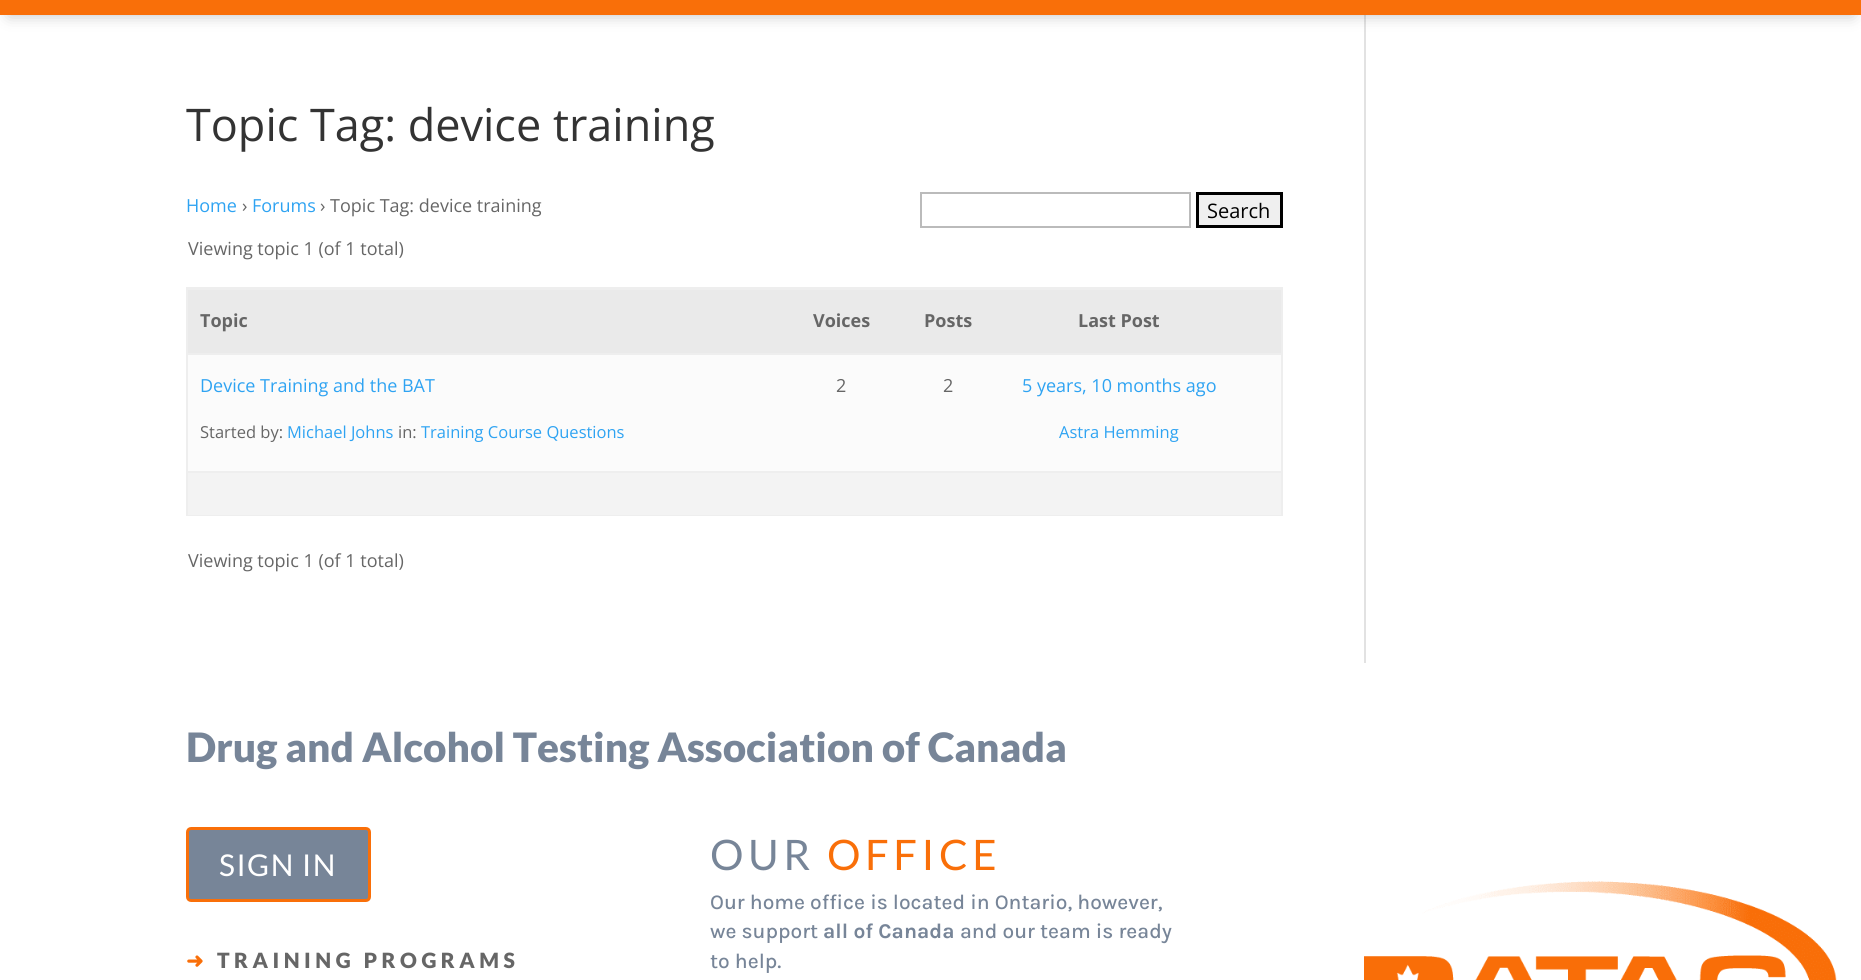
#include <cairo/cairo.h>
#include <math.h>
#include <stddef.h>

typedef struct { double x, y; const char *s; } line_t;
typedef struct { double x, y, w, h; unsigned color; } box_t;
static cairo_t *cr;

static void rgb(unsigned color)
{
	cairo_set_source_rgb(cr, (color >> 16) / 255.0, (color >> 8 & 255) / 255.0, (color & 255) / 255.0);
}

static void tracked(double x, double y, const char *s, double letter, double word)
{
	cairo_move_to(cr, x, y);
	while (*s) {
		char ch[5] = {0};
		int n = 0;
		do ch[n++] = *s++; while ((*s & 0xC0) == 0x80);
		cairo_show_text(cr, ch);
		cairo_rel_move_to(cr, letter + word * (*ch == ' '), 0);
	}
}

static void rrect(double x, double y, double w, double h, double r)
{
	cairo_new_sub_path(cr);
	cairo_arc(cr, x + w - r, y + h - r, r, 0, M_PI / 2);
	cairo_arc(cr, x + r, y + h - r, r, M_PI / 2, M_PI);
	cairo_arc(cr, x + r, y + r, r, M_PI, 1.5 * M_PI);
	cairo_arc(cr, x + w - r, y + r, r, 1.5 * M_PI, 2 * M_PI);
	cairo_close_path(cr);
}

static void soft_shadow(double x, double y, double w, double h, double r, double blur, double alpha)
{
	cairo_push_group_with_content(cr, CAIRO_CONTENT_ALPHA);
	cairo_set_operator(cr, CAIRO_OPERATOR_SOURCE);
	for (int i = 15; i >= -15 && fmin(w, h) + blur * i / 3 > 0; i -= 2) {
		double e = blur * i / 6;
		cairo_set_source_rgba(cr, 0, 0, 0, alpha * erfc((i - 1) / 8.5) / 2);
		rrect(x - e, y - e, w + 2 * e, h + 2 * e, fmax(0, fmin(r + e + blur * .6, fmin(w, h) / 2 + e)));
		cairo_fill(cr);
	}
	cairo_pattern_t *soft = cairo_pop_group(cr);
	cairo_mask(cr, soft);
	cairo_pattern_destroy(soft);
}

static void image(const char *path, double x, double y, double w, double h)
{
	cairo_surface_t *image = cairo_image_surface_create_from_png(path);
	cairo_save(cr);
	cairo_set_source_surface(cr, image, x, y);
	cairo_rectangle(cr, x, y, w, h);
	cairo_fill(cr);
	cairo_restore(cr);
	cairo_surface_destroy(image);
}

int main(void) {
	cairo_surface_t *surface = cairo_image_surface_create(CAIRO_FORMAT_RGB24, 1861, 980);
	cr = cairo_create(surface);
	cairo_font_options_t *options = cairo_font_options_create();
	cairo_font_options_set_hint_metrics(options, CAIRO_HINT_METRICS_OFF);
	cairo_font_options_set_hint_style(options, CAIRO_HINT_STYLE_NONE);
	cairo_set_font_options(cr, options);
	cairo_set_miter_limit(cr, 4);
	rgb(0xffffff);
	cairo_paint(cr);
	rgb(0xe2e2e2);
	cairo_rectangle(cr, 1364, 15, 2, 648);
	cairo_fill(cr);
	rgb(0x000000);
	soft_shadow(9, -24, 1844, 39, 0, 8, 0.24);
	rgb(0xf96f09);
	cairo_rectangle(cr, 0, 0, 1861, 15);
	cairo_fill(cr);
	cairo_rectangle(cr, 921, 193, 269, 34);
	rgb(0xbbbbbb);
	cairo_stroke(cr);
	rgb(0xefefef);
	cairo_rectangle(cr, 1197.5, 193.5, 84, 33);
	cairo_fill_preserve(cr);
	rgb(0x000000);
	cairo_set_line_width(cr, 3);
	cairo_stroke(cr);
	cairo_rectangle(cr, 187, 288, 1095, 227);
	rgb(0xeeeeee);
	cairo_set_line_width(cr, 2);
	cairo_stroke(cr);
	{
		static const box_t items[] = {
			{188, 290, 1093, 63, 0xeaeaea},
			{188, 289, 1093, 1, 0xeeeeee},
			{188, 355, 1093, 116, 0xfbfbfb},
			{188, 353, 1093, 2, 0xeeeeee},
			{188, 473, 1093, 42, 0xf3f3f3},
			{188, 471, 1093, 2, 0xeeeeee},
		};
		for (size_t i = 0; i < sizeof items / sizeof *items; i++) {
			rgb(items[i].color);
			cairo_rectangle(cr, items[i].x, items[i].y, items[i].w, items[i].h);
			cairo_fill(cr);
		}
	}
	rgb(0x778598);
	rrect(187.5, 828.5, 182, 72, 3.5);
	cairo_fill_preserve(cr);
	rgb(0xf96f09);
	cairo_set_line_width(cr, 3);
	cairo_stroke(cr);
	image("img/1.png", 1364, 881, 473, 99);
	cairo_select_font_face(cr, "Open Sans", CAIRO_FONT_SLANT_NORMAL, CAIRO_FONT_WEIGHT_NORMAL);
	cairo_set_font_size(cr, 45);
	rgb(0x333333);
	cairo_move_to(cr, 186, 141);
	cairo_show_text(cr, "Topic Tag: device training");
	cairo_set_font_size(cr, 18);
	rgb(0x2ea3f2);
	cairo_move_to(cr, 186, 212);
	cairo_show_text(cr, "Home");
	rgb(0x666666);
	cairo_move_to(cr, 242, 212);
	cairo_show_text(cr, "›");
	rgb(0x2ea3f2);
	cairo_move_to(cr, 252, 212);
	cairo_show_text(cr, "Forums");
	rgb(0x666666);
	cairo_move_to(cr, 320, 212);
	cairo_show_text(cr, "› Topic Tag: device training");
	cairo_set_font_size(cr, 20);
	rgb(0x000000);
	cairo_move_to(cr, 1207, 218);
	cairo_show_text(cr, "Search");
	cairo_set_font_size(cr, 18);
	rgb(0x666666);
	cairo_move_to(cr, 188, 255);
	cairo_show_text(cr, "Viewing topic 1 (of 1 total)");
	cairo_select_font_face(cr, "Open Sans", CAIRO_FONT_SLANT_NORMAL, CAIRO_FONT_WEIGHT_BOLD);
	{
		static const line_t items[] = {
			{200, 327, "Topic"},
			{813, 327, "Voices"},
			{924, 327, "Posts"},
			{1078, 327, "Last Post"},
		};
		for (size_t i = 0; i < sizeof items / sizeof *items; i++) {
			cairo_move_to(cr, items[i].x, items[i].y);
			cairo_show_text(cr, items[i].s);
		}
	}
	cairo_select_font_face(cr, "Open Sans", CAIRO_FONT_SLANT_NORMAL, CAIRO_FONT_WEIGHT_NORMAL);
	rgb(0x2ea3f2);
	cairo_move_to(cr, 200, 392);
	cairo_show_text(cr, "Device Training and the BAT");
	cairo_set_font_size(cr, 16.5);
	rgb(0x666666);
	cairo_move_to(cr, 200, 438);
	cairo_show_text(cr, "Started by:");
	rgb(0x2ea3f2);
	cairo_move_to(cr, 287, 438);
	cairo_show_text(cr, "Michael Johns");
	rgb(0x666666);
	cairo_move_to(cr, 398, 438);
	cairo_show_text(cr, "in:");
	rgb(0x2ea3f2);
	cairo_move_to(cr, 421, 438);
	cairo_show_text(cr, "Training Course Questions");
	cairo_set_font_size(cr, 18);
	rgb(0x666666);
	cairo_move_to(cr, 836, 392);
	cairo_show_text(cr, "2");
	cairo_move_to(cr, 943, 392);
	cairo_show_text(cr, "2");
	rgb(0x2ea3f2);
	cairo_move_to(cr, 1022, 392);
	cairo_show_text(cr, "5 years, 10 months ago");
	cairo_set_font_size(cr, 16.5);
	cairo_move_to(cr, 1059, 438);
	cairo_show_text(cr, "Astra Hemming");
	cairo_set_font_size(cr, 18);
	rgb(0x666666);
	cairo_move_to(cr, 188, 567);
	cairo_show_text(cr, "Viewing topic 1 (of 1 total)");
	cairo_select_font_face(cr, "Lato Black", CAIRO_FONT_SLANT_NORMAL, CAIRO_FONT_WEIGHT_NORMAL);
	cairo_set_font_size(cr, 40.5);
	rgb(0x778598);
	cairo_move_to(cr, 186, 762);
	cairo_show_text(cr, "Drug and Alcohol Testing Association of Canada");
	cairo_select_font_face(cr, "Lato", CAIRO_FONT_SLANT_NORMAL, CAIRO_FONT_WEIGHT_NORMAL);
	cairo_set_font_size(cr, 30);
	rgb(0xffffff);
	tracked(219, 876, "SIGN IN", 1.5, 0);
	cairo_select_font_face(cr, "DejaVu Sans", CAIRO_FONT_SLANT_NORMAL, CAIRO_FONT_WEIGHT_BOLD);
	cairo_set_font_size(cr, 21);
	rgb(0xf96f09);
	tracked(186, 968, "➜", 4.5, 0);
	cairo_select_font_face(cr, "Lato Black", CAIRO_FONT_SLANT_NORMAL, CAIRO_FONT_WEIGHT_NORMAL);
	rgb(0x666666);
	tracked(217, 968, "TRAINING PROGRAMS", 4.5, 0);
	cairo_select_font_face(cr, "Lato", CAIRO_FONT_SLANT_NORMAL, CAIRO_FONT_WEIGHT_NORMAL);
	cairo_set_font_size(cr, 42);
	rgb(0x778598);
	tracked(710, 870, "OUR", 4.5, 0);
	rgb(0xf96f09);
	tracked(827, 870, "OFFICE", 4.5, 0);
	cairo_select_font_face(cr, "Karla Medium", CAIRO_FONT_SLANT_NORMAL, CAIRO_FONT_WEIGHT_NORMAL);
	cairo_set_font_size(cr, 21);
	rgb(0x778598);
	cairo_move_to(cr, 710, 909);
	cairo_show_text(cr, "Our home office is located in Ontario, however,");
	cairo_move_to(cr, 710, 938);
	cairo_show_text(cr, "we support");
	cairo_select_font_face(cr, "Karla", CAIRO_FONT_SLANT_NORMAL, CAIRO_FONT_WEIGHT_BOLD);
	cairo_move_to(cr, 823, 938);
	cairo_show_text(cr, "all of Canada");
	cairo_select_font_face(cr, "Karla Medium", CAIRO_FONT_SLANT_NORMAL, CAIRO_FONT_WEIGHT_NORMAL);
	cairo_move_to(cr, 960, 938);
	cairo_show_text(cr, "and our team is ready");
	cairo_move_to(cr, 710, 968);
	cairo_show_text(cr, "to help.");
	cairo_surface_write_to_png(surface, "page.png");
	cairo_font_options_destroy(options);
	cairo_destroy(cr);
	cairo_surface_destroy(surface);
	return 0;
}
